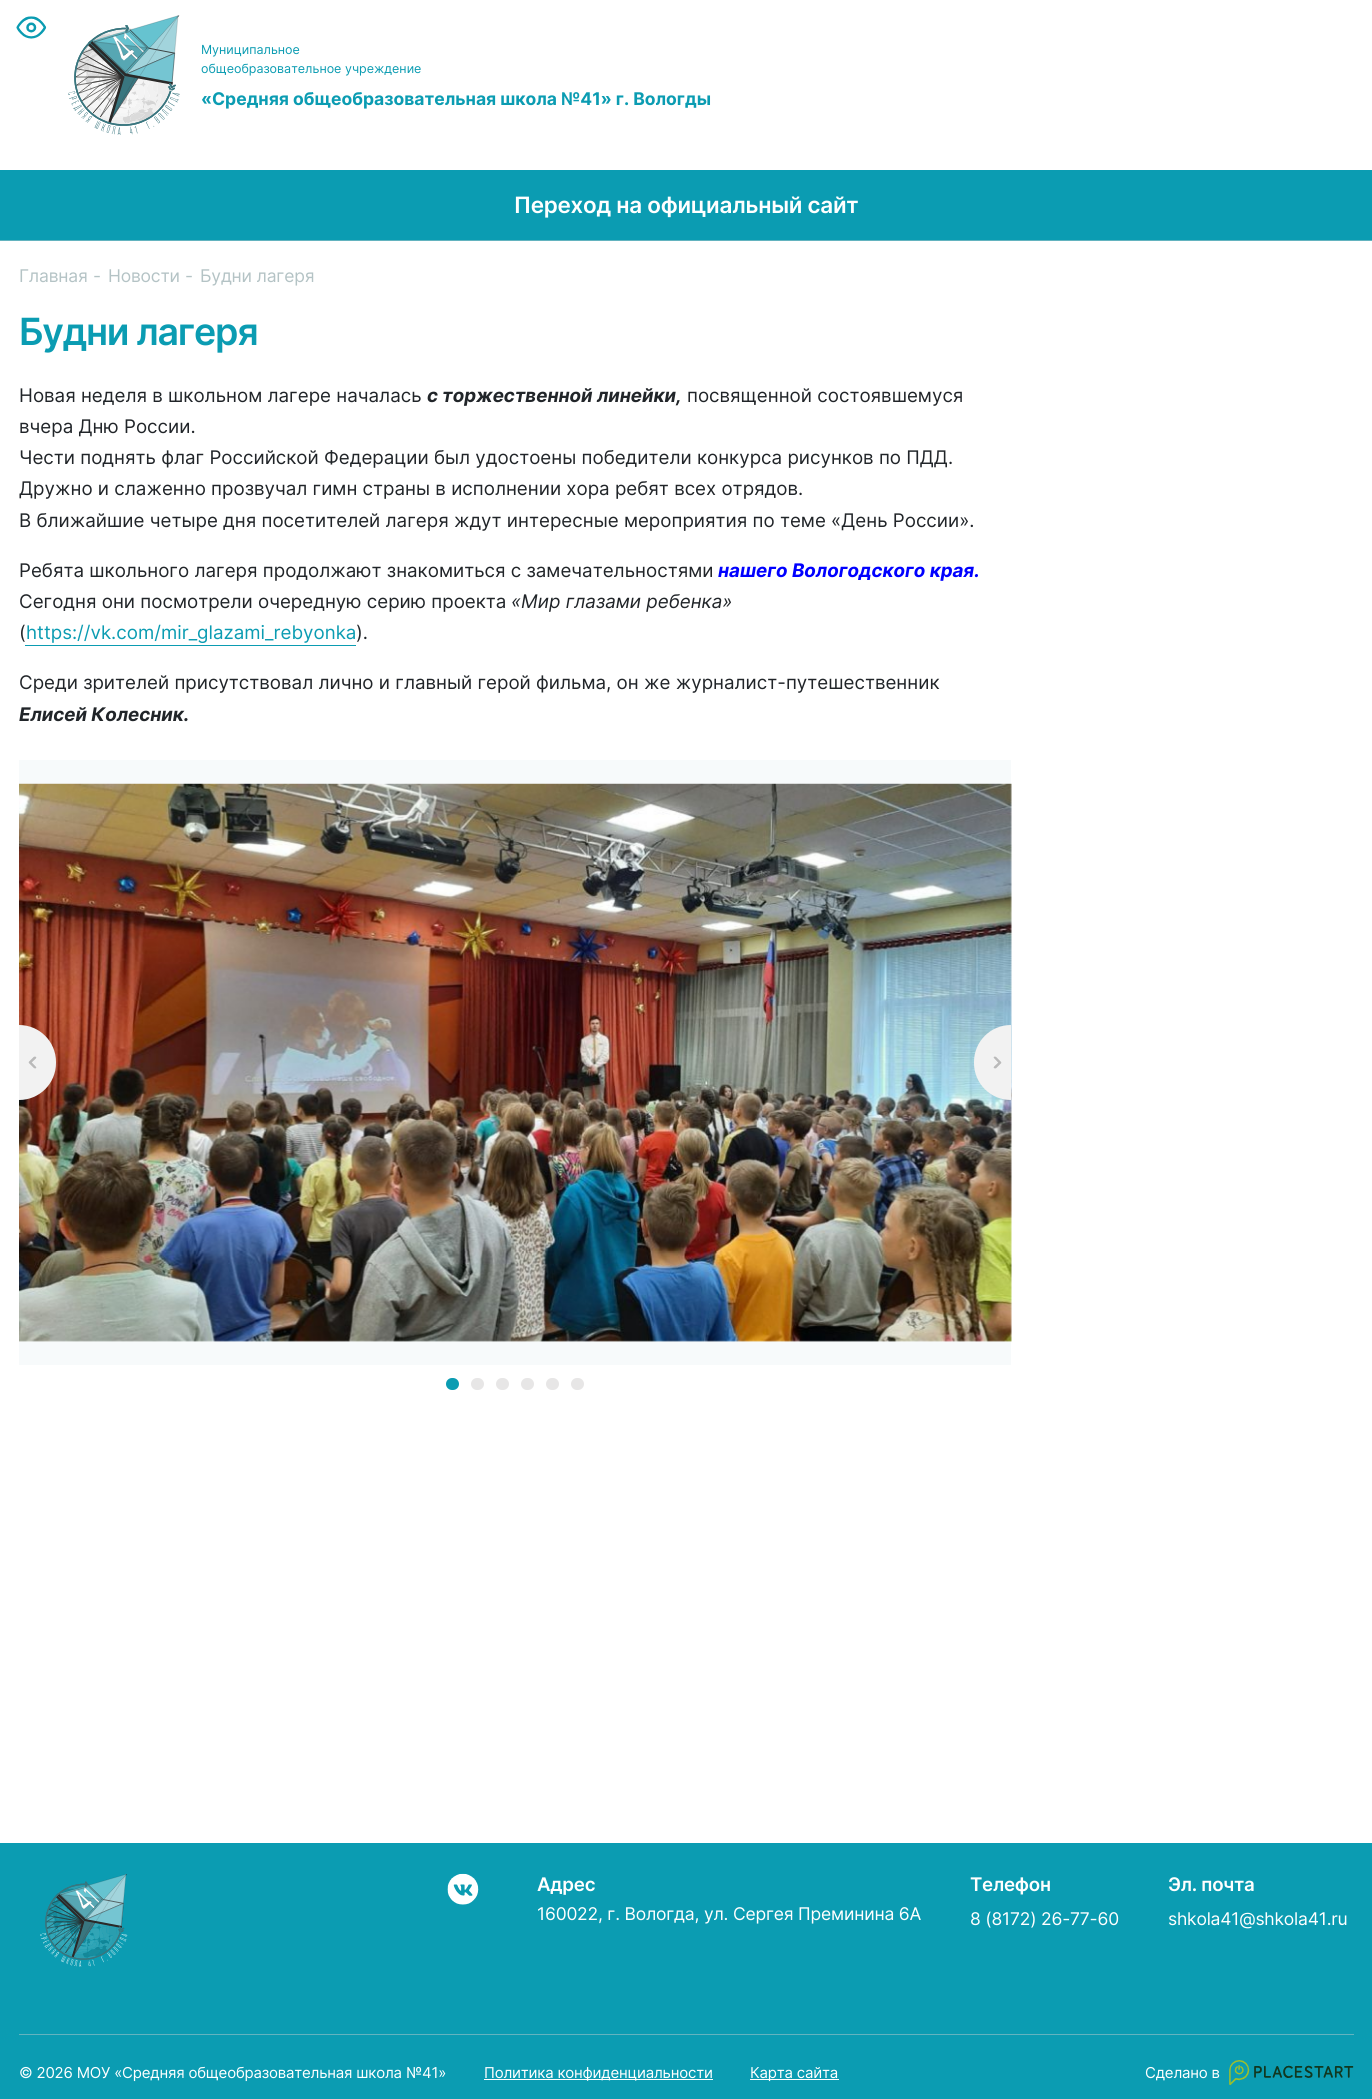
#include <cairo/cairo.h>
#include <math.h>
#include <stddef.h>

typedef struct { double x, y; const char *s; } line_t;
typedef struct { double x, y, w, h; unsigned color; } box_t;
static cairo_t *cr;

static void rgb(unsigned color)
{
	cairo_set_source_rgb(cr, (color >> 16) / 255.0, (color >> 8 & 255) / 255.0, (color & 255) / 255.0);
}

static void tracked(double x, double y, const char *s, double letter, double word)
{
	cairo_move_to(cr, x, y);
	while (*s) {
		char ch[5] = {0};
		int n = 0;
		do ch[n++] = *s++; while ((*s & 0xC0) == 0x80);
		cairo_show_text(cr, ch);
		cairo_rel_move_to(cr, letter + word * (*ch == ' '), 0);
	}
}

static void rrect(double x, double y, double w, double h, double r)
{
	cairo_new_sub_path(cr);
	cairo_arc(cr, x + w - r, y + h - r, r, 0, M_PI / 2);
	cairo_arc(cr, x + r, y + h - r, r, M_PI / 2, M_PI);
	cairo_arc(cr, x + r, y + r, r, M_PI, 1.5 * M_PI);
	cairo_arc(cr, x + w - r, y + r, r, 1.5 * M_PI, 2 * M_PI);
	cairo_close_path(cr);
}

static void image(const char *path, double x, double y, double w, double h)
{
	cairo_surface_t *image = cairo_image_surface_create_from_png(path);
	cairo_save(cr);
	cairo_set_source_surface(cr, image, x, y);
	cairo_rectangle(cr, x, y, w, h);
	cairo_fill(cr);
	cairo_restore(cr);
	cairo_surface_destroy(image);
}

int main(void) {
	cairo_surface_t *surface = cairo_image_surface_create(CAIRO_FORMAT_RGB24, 1372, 2099);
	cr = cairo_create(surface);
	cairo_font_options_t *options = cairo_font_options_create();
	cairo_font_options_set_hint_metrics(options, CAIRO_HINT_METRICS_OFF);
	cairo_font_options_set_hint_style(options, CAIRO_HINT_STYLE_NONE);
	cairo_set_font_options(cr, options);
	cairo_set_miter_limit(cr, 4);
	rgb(0xffffff);
	cairo_paint(cr);
	image("img/1.png", 16, 16, 31, 23);
	image("img/2.png", 68, 15, 112, 120);
	{
		static const box_t items[] = {
			{0, 170, 1372, 70, 0x0b9cb2},
			{0, 240, 1372, 1, 0x63b3bf},
			{25, 645, 331, 1, 0x0b9cb2},
			{19, 760, 992, 605, 0xf7fafb},
		};
		for (size_t i = 0; i < sizeof items / sizeof *items; i++) {
			rgb(items[i].color);
			cairo_rectangle(cr, items[i].x, items[i].y, items[i].w, items[i].h);
			cairo_fill(cr);
		}
	}
	image("img/3.png", 19, 783, 993, 559);
	rgb(0xf2f2f2);
	cairo_new_path(cr);
	cairo_move_to(cr, 19, 1025);
	cairo_curve_to(cr, 39.5, 1025, 56, 1041.5, 56, 1062);
	cairo_line_to(cr, 56, 1063);
	cairo_curve_to(cr, 56, 1083.5, 39.5, 1100, 19, 1100);
	cairo_close_path(cr);
	cairo_fill(cr);
	image("img/4.png", 28, 1056, 9, 13);
	cairo_new_path(cr);
	cairo_move_to(cr, 1011, 1025);
	cairo_line_to(cr, 1011, 1100);
	cairo_curve_to(cr, 990.5, 1100, 974, 1083.5, 974, 1063);
	cairo_line_to(cr, 974, 1062);
	cairo_curve_to(cr, 974, 1041.5, 990.5, 1025, 1011, 1025);
	cairo_close_path(cr);
	cairo_fill(cr);
	image("img/5.png", 993, 1056, 9, 13);
	rgb(0x0b9cb2);
	rrect(446, 1378, 13, 12, 6);
	cairo_fill(cr);
	rgb(0xe7e6e6);
	rrect(471, 1378, 13, 12, 6);
	cairo_fill(cr);
	rrect(496, 1378, 13, 12, 6);
	cairo_fill(cr);
	rrect(521, 1378, 13, 12, 6);
	cairo_fill(cr);
	rrect(546, 1378, 13, 12, 6);
	cairo_fill(cr);
	rrect(571, 1378, 13, 12, 6);
	cairo_fill(cr);
	rgb(0x0b9cb2);
	cairo_rectangle(cr, 0, 1843, 1372, 256);
	cairo_fill(cr);
	image("img/6.png", 40, 1874, 88, 93);
	image("img/7.png", 447, 1873, 32, 32);
	{
		static const box_t items[] = {
			{19, 2034, 1335, 1, 0x63b3bf},
			{484, 2079, 229, 1, 0xffffff},
			{750, 2079, 89, 1, 0xffffff},
		};
		for (size_t i = 0; i < sizeof items / sizeof *items; i++) {
			rgb(items[i].color);
			cairo_rectangle(cr, items[i].x, items[i].y, items[i].w, items[i].h);
			cairo_fill(cr);
		}
	}
	image("img/8.png", 1229, 2060, 125, 25);
	cairo_select_font_face(cr, "Inter", CAIRO_FONT_SLANT_NORMAL, CAIRO_FONT_WEIGHT_NORMAL);
	cairo_set_font_size(cr, 12.5);
	rgb(0x0b9cb2);
	cairo_move_to(cr, 201, 54);
	cairo_show_text(cr, "Муниципальное");
	cairo_move_to(cr, 201, 73);
	cairo_show_text(cr, "общеобразовательное учреждение");
	cairo_select_font_face(cr, "Inter", CAIRO_FONT_SLANT_NORMAL, CAIRO_FONT_WEIGHT_BOLD);
	cairo_set_font_size(cr, 17.5);
	cairo_move_to(cr, 201, 105);
	cairo_show_text(cr, "«Средняя общеобразовательная школа №41» г. Вологды");
	cairo_select_font_face(cr, "Inter SemiBold", CAIRO_FONT_SLANT_NORMAL, CAIRO_FONT_WEIGHT_NORMAL);
	cairo_set_font_size(cr, 22.5);
	rgb(0xffffff);
	tracked(514, 213, "Переход на официальный сайт", -0.25, 0);
	cairo_select_font_face(cr, "Inter", CAIRO_FONT_SLANT_NORMAL, CAIRO_FONT_WEIGHT_NORMAL);
	cairo_set_font_size(cr, 17.5);
	rgb(0xb4c3c5);
	{
		static const line_t items[] = {
			{19, 282, "Главная"},
			{93, 282, "-"},
			{108, 282, "Новости"},
			{185, 282, "-"},
			{200, 282, "Будни лагеря"},
		};
		for (size_t i = 0; i < sizeof items / sizeof *items; i++) {
			tracked(items[i].x, items[i].y, items[i].s, -0.2, 0);
		}
	}
	cairo_select_font_face(cr, "Inter SemiBold", CAIRO_FONT_SLANT_NORMAL, CAIRO_FONT_WEIGHT_NORMAL);
	cairo_set_font_size(cr, 37.5);
	rgb(0x0b9cb2);
	tracked(19, 345, "Будни лагеря", -1.25, 0);
	cairo_select_font_face(cr, "Inter", CAIRO_FONT_SLANT_NORMAL, CAIRO_FONT_WEIGHT_NORMAL);
	cairo_set_font_size(cr, 18.75);
	rgb(0x212529);
	cairo_move_to(cr, 19, 402);
	cairo_show_text(cr, "Новая неделя в школьном лагере началась");
	cairo_select_font_face(cr, "Inter", CAIRO_FONT_SLANT_ITALIC, CAIRO_FONT_WEIGHT_BOLD);
	cairo_move_to(cr, 427, 402);
	cairo_show_text(cr, "с торжественной линейки,");
	cairo_select_font_face(cr, "Inter", CAIRO_FONT_SLANT_NORMAL, CAIRO_FONT_WEIGHT_NORMAL);
	{
		static const line_t items[] = {
			{687, 402, "посвященной состоявшемуся"},
			{19, 433, "вчера Дню России."},
			{19, 464, "Чести поднять флаг Российской Федерации был удостоены победители конкурса рисунков по ПДД."},
			{19, 495, "Дружно и слаженно прозвучал гимн страны в исполнении хора ребят всех отрядов."},
			{19, 527, "В ближайшие четыре дня посетителей лагеря ждут интересные мероприятия по теме «День России»."},
			{19, 577, "Ребята школьного лагеря продолжают знакомиться с замечательностями"},
		};
		for (size_t i = 0; i < sizeof items / sizeof *items; i++) {
			cairo_move_to(cr, items[i].x, items[i].y);
			cairo_show_text(cr, items[i].s);
		}
	}
	cairo_select_font_face(cr, "Inter", CAIRO_FONT_SLANT_ITALIC, CAIRO_FONT_WEIGHT_BOLD);
	rgb(0x0000ff);
	cairo_move_to(cr, 718, 577);
	cairo_show_text(cr, "нашего Вологодского края.");
	cairo_select_font_face(cr, "Inter", CAIRO_FONT_SLANT_NORMAL, CAIRO_FONT_WEIGHT_NORMAL);
	rgb(0x212529);
	cairo_move_to(cr, 19, 608);
	cairo_show_text(cr, "Сегодня они посмотрели очередную серию проекта");
	cairo_select_font_face(cr, "Inter", CAIRO_FONT_SLANT_ITALIC, CAIRO_FONT_WEIGHT_NORMAL);
	cairo_move_to(cr, 511, 608);
	cairo_show_text(cr, "«Мир глазами ребенка»");
	cairo_select_font_face(cr, "Inter", CAIRO_FONT_SLANT_NORMAL, CAIRO_FONT_WEIGHT_NORMAL);
	cairo_move_to(cr, 19, 639);
	cairo_show_text(cr, "(");
	rgb(0x0b9cb2);
	cairo_move_to(cr, 26, 639);
	cairo_show_text(cr, "https://vk.com/mir_glazami_rebyonka");
	rgb(0x212529);
	cairo_move_to(cr, 356, 639);
	cairo_show_text(cr, ").");
	cairo_move_to(cr, 19, 689);
	cairo_show_text(cr, "Среди зрителей присутствовал лично и главный герой фильма, он же журналист-путешественник");
	cairo_select_font_face(cr, "Inter", CAIRO_FONT_SLANT_ITALIC, CAIRO_FONT_WEIGHT_BOLD);
	cairo_move_to(cr, 19, 721);
	cairo_show_text(cr, "Елисей Колесник.");
	cairo_select_font_face(cr, "Inter SemiBold", CAIRO_FONT_SLANT_NORMAL, CAIRO_FONT_WEIGHT_NORMAL);
	rgb(0xffffff);
	tracked(537, 1891, "Адрес", -0.25, 0);
	cairo_select_font_face(cr, "Inter", CAIRO_FONT_SLANT_NORMAL, CAIRO_FONT_WEIGHT_NORMAL);
	cairo_set_font_size(cr, 17.5);
	tracked(537, 1920, "160022, г. Вологда, ул. Сергея Преминина 6А", -0.2, 0);
	cairo_select_font_face(cr, "Inter SemiBold", CAIRO_FONT_SLANT_NORMAL, CAIRO_FONT_WEIGHT_NORMAL);
	cairo_set_font_size(cr, 18.75);
	tracked(970, 1891, "Телефон", -0.25, 0);
	cairo_select_font_face(cr, "Inter", CAIRO_FONT_SLANT_NORMAL, CAIRO_FONT_WEIGHT_NORMAL);
	cairo_set_font_size(cr, 17.5);
	tracked(970, 1925, "8 (8172) 26-77-60", -0.2, 0);
	cairo_select_font_face(cr, "Inter SemiBold", CAIRO_FONT_SLANT_NORMAL, CAIRO_FONT_WEIGHT_NORMAL);
	cairo_set_font_size(cr, 18.75);
	tracked(1168, 1891, "Эл. почта", -0.25, 0);
	cairo_select_font_face(cr, "Inter", CAIRO_FONT_SLANT_NORMAL, CAIRO_FONT_WEIGHT_NORMAL);
	cairo_set_font_size(cr, 17.5);
	tracked(1168, 1925, "shkola41@shkola41.ru", -0.2, 0);
	cairo_set_font_size(cr, 15);
	{
		static const line_t items[] = {
			{19, 2078, "© 2026 МОУ «Средняя общеобразовательная школа №41»"},
			{484, 2078, "Политика конфиденциальности"},
			{750, 2078, "Карта сайта"},
			{1145, 2078, "Сделано в"},
		};
		for (size_t i = 0; i < sizeof items / sizeof *items; i++) {
			tracked(items[i].x, items[i].y, items[i].s, -0.2, 0);
		}
	}
	cairo_surface_write_to_png(surface, "page.png");
	cairo_font_options_destroy(options);
	cairo_destroy(cr);
	cairo_surface_destroy(surface);
	return 0;
}
